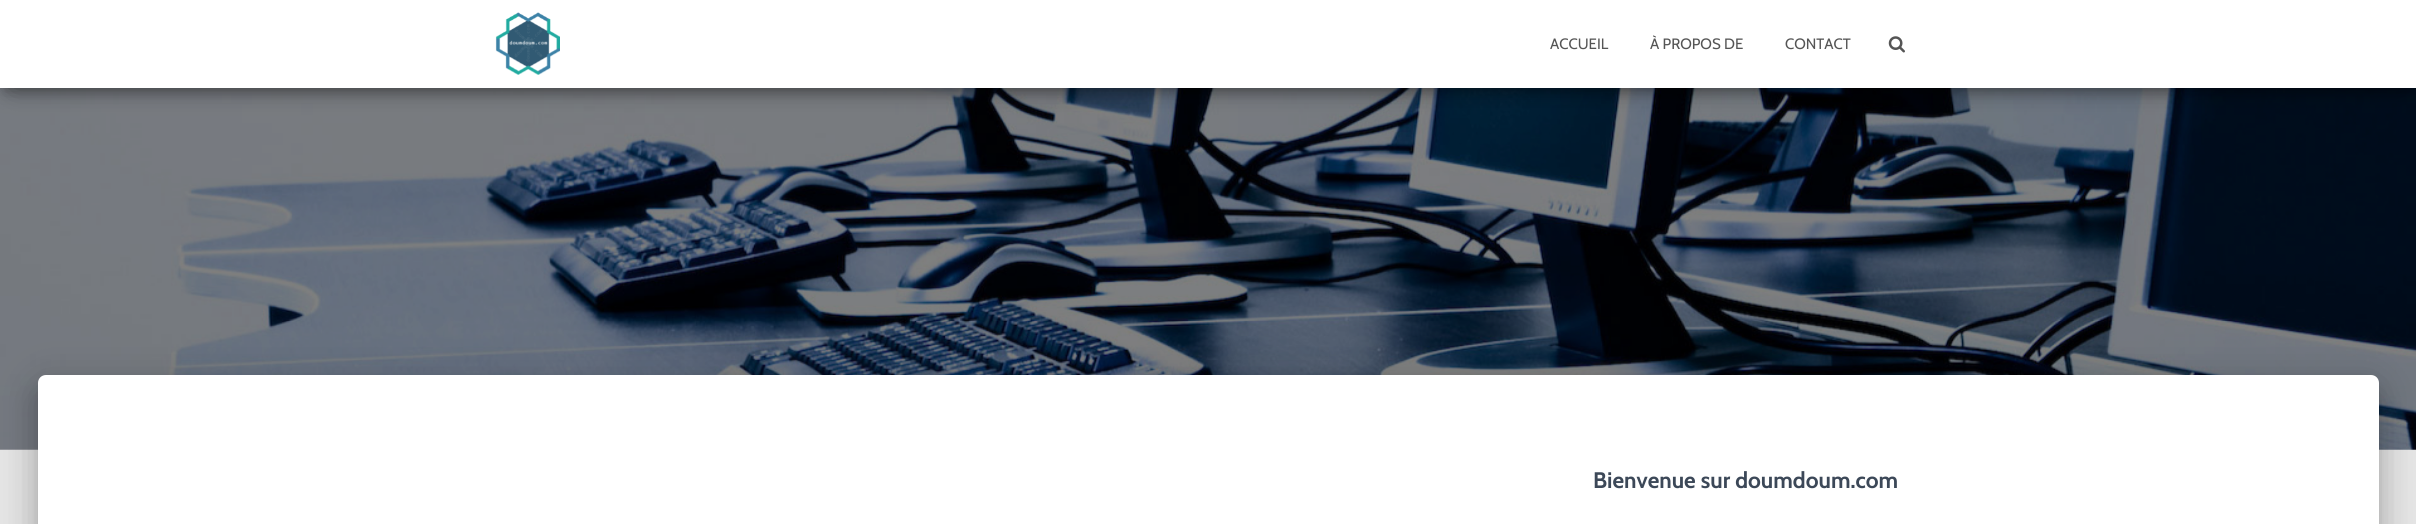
#include <cairo/cairo.h>
#include <math.h>
#include <stddef.h>

typedef struct { double x, y; const char *s; } line_t;
static cairo_t *cr;

static void rgb(unsigned color)
{
	cairo_set_source_rgb(cr, (color >> 16) / 255.0, (color >> 8 & 255) / 255.0, (color & 255) / 255.0);
}

static void rrect(double x, double y, double w, double h, double r)
{
	cairo_new_sub_path(cr);
	cairo_arc(cr, x + w - r, y + h - r, r, 0, M_PI / 2);
	cairo_arc(cr, x + r, y + h - r, r, M_PI / 2, M_PI);
	cairo_arc(cr, x + r, y + r, r, M_PI, 1.5 * M_PI);
	cairo_arc(cr, x + w - r, y + r, r, 1.5 * M_PI, 2 * M_PI);
	cairo_close_path(cr);
}

static void soft_shadow(double x, double y, double w, double h, double r, double blur, double alpha)
{
	cairo_push_group_with_content(cr, CAIRO_CONTENT_ALPHA);
	cairo_set_operator(cr, CAIRO_OPERATOR_SOURCE);
	for (int i = 15; i >= -15 && fmin(w, h) + blur * i / 3 > 0; i -= 2) {
		double e = blur * i / 6;
		cairo_set_source_rgba(cr, 0, 0, 0, alpha * erfc((i - 1) / 8.5) / 2);
		rrect(x - e, y - e, w + 2 * e, h + 2 * e, fmax(0, fmin(r + e + blur * .6, fmin(w, h) / 2 + e)));
		cairo_fill(cr);
	}
	cairo_pattern_t *soft = cairo_pop_group(cr);
	cairo_mask(cr, soft);
	cairo_pattern_destroy(soft);
}

static void image(const char *path, double x, double y, double w, double h)
{
	cairo_surface_t *image = cairo_image_surface_create_from_png(path);
	cairo_save(cr);
	cairo_set_source_surface(cr, image, x, y);
	cairo_rectangle(cr, x, y, w, h);
	cairo_fill(cr);
	cairo_restore(cr);
	cairo_surface_destroy(image);
}

int main(void) {
	cairo_surface_t *surface = cairo_image_surface_create(CAIRO_FORMAT_RGB24, 2416, 524);
	cr = cairo_create(surface);
	cairo_font_options_t *options = cairo_font_options_create();
	cairo_font_options_set_hint_metrics(options, CAIRO_HINT_METRICS_OFF);
	cairo_font_options_set_hint_style(options, CAIRO_HINT_STYLE_NONE);
	cairo_set_font_options(cr, options);
	cairo_set_miter_limit(cr, 4);
	rgb(0xe5e5e5);
	cairo_paint(cr);
	image("img/3.png", 0, 88, 2416, 362);
	rgb(0x000000);
	soft_shadow(6, 16, 2404, 75, 0, 6, 0.2);
	soft_shadow(0, 4, 2416, 87, 0, 12.5, 0.12);
	soft_shadow(15, 28, 2386, 57, 0, 12.5, 0.42);
	rgb(0xffffff);
	cairo_rectangle(cr, 0, 0, 2416, 88);
	cairo_fill(cr);
	image("img/1.png", 495, 12, 65, 63);
	image("img/2.png", 1888, 36, 17, 17);
	rgb(0x000000);
	soft_shadow(44, 391, 2329, 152, 1, 6, 0.2);
	soft_shadow(31, 376, 2354, 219, 14, 19, 0.12);
	soft_shadow(35, 393, 2346, 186, 10, 15, 0.14);
	rgb(0xffffff);
	cairo_new_path(cr);
	cairo_move_to(cr, 46, 375);
	cairo_line_to(cr, 2371, 375);
	cairo_curve_to(cr, 2375.5, 375, 2379, 378.5, 2379, 383);
	cairo_line_to(cr, 2379, 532);
	cairo_line_to(cr, 38, 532);
	cairo_line_to(cr, 38, 383);
	cairo_curve_to(cr, 38, 378.5, 41.5, 375, 46, 375);
	cairo_close_path(cr);
	cairo_fill(cr);
	cairo_select_font_face(cr, "Cabin", CAIRO_FONT_SLANT_NORMAL, CAIRO_FONT_WEIGHT_NORMAL);
	cairo_set_font_size(cr, 15);
	rgb(0x555555);
	{
		static const line_t items[] = {
			{1550, 49, "ACCUEIL"},
			{1650, 49, "À PROPOS DE"},
			{1785, 49, "CONTACT"},
		};
		for (size_t i = 0; i < sizeof items / sizeof *items; i++) {
			cairo_move_to(cr, items[i].x, items[i].y);
			cairo_show_text(cr, items[i].s);
		}
	}
	cairo_select_font_face(cr, "Cabin", CAIRO_FONT_SLANT_NORMAL, CAIRO_FONT_WEIGHT_BOLD);
	cairo_set_font_size(cr, 22.5);
	rgb(0x3c4858);
	cairo_move_to(cr, 1593, 488);
	cairo_show_text(cr, "Bienvenue sur doumdoum.com");
	cairo_surface_write_to_png(surface, "page.png");
	cairo_font_options_destroy(options);
	cairo_destroy(cr);
	cairo_surface_destroy(surface);
	return 0;
}
